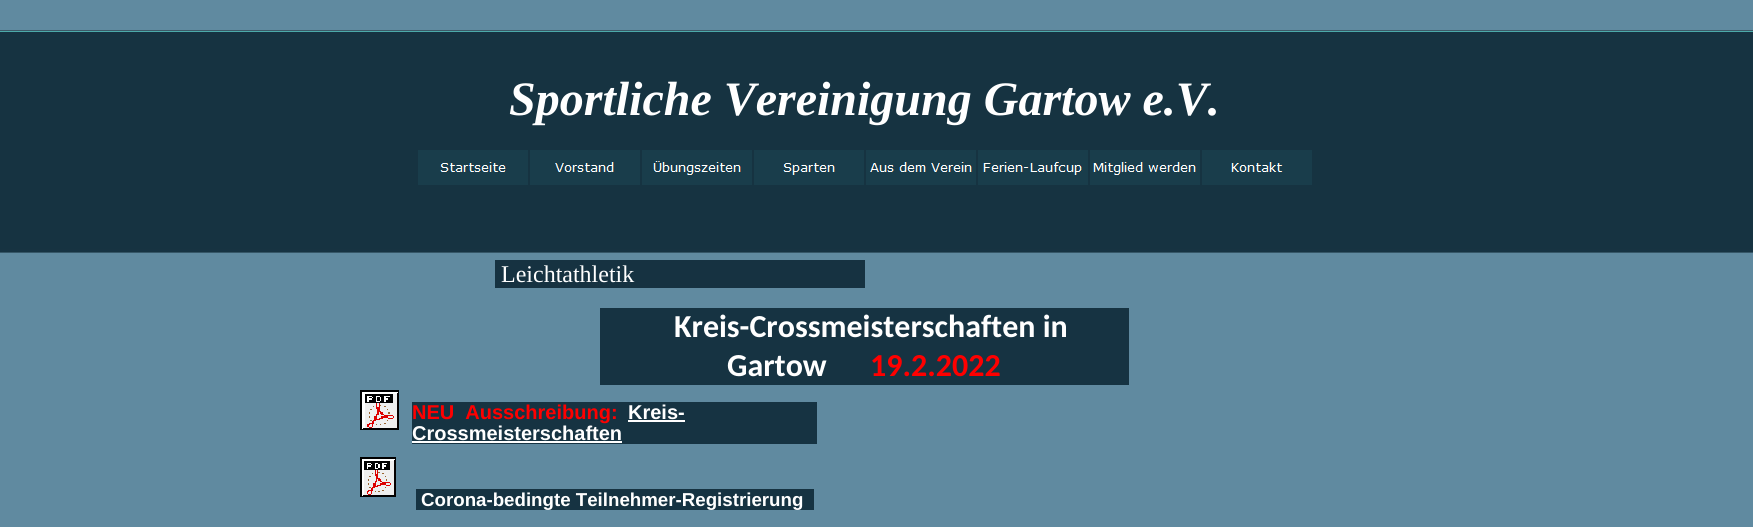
#include <cairo/cairo.h>
#include <math.h>
#include <stddef.h>

typedef struct { double x, y, w, h; unsigned color; } box_t;
static cairo_t *cr;

static void rgb(unsigned color)
{
	cairo_set_source_rgb(cr, (color >> 16) / 255.0, (color >> 8 & 255) / 255.0, (color & 255) / 255.0);
}

static void image(const char *path, double x, double y, double w, double h)
{
	cairo_surface_t *image = cairo_image_surface_create_from_png(path);
	cairo_save(cr);
	cairo_set_source_surface(cr, image, x, y);
	cairo_rectangle(cr, x, y, w, h);
	cairo_fill(cr);
	cairo_restore(cr);
	cairo_surface_destroy(image);
}

int main(void) {
	cairo_surface_t *surface = cairo_image_surface_create(CAIRO_FORMAT_RGB24, 1753, 527);
	cr = cairo_create(surface);
	cairo_font_options_t *options = cairo_font_options_create();
	cairo_font_options_set_hint_metrics(options, CAIRO_HINT_METRICS_OFF);
	cairo_font_options_set_hint_style(options, CAIRO_HINT_STYLE_NONE);
	cairo_set_font_options(cr, options);
	cairo_set_miter_limit(cr, 4);
	rgb(0x608aa0);
	cairo_paint(cr);
	image("img/1.png", 0, 30, 1753, 223);
	image("img/2.png", 418, 150, 110, 35);
	image("img/3.png", 530, 150, 110, 35);
	image("img/4.png", 642, 150, 110, 35);
	image("img/5.png", 754, 150, 110, 35);
	image("img/6.png", 866, 150, 110, 35);
	image("img/7.png", 978, 150, 110, 35);
	image("img/8.png", 1090, 150, 110, 35);
	image("img/9.png", 1202, 150, 110, 35);
	image("img/10.png", 360, 390, 39, 40);
	image("img/11.png", 360, 457, 36, 40);
	{
		static const box_t items[] = {
			{495, 260, 370, 28, 0x163241},
			{600, 308, 529, 77, 0x163342},
			{412, 402, 405, 42, 0x163342},
			{628, 420, 57, 2, 0xffffff},
			{412, 441, 210, 2, 0xffffff},
			{416, 489, 398, 21, 0x163342},
		};
		for (size_t i = 0; i < sizeof items / sizeof *items; i++) {
			rgb(items[i].color);
			cairo_rectangle(cr, items[i].x, items[i].y, items[i].w, items[i].h);
			cairo_fill(cr);
		}
	}
	cairo_select_font_face(cr, "Liberation Serif", CAIRO_FONT_SLANT_ITALIC, CAIRO_FONT_WEIGHT_BOLD);
	cairo_set_font_size(cr, 48);
	rgb(0xffffff);
	cairo_move_to(cr, 509, 115);
	cairo_show_text(cr, "Sportliche Vereinigung Gartow e.V.");
	cairo_select_font_face(cr, "Liberation Serif", CAIRO_FONT_SLANT_NORMAL, CAIRO_FONT_WEIGHT_NORMAL);
	cairo_set_font_size(cr, 24);
	cairo_move_to(cr, 501, 282);
	cairo_show_text(cr, "Leichtathletik");
	cairo_select_font_face(cr, "Carlito", CAIRO_FONT_SLANT_NORMAL, CAIRO_FONT_WEIGHT_BOLD);
	cairo_set_font_size(cr, 32);
	cairo_move_to(cr, 674, 337);
	cairo_show_text(cr, "Kreis-Crossmeisterschaften in");
	cairo_move_to(cr, 727, 376);
	cairo_show_text(cr, "Gartow");
	rgb(0xff0000);
	cairo_move_to(cr, 870, 376);
	cairo_show_text(cr, "19.2.2022");
	cairo_select_font_face(cr, "Liberation Sans", CAIRO_FONT_SLANT_NORMAL, CAIRO_FONT_WEIGHT_BOLD);
	cairo_set_font_size(cr, 20);
	cairo_move_to(cr, 412, 419);
	cairo_show_text(cr, "NEU  Ausschreibung:");
	rgb(0xffffff);
	cairo_move_to(cr, 628, 419);
	cairo_show_text(cr, "Kreis-");
	cairo_move_to(cr, 412, 440);
	cairo_show_text(cr, "Crossmeisterschaften");
	cairo_set_font_size(cr, 18.7);
	cairo_move_to(cr, 421, 506);
	cairo_show_text(cr, "Corona-bedingte Teilnehmer-Registrierung");
	cairo_surface_write_to_png(surface, "page.png");
	cairo_font_options_destroy(options);
	cairo_destroy(cr);
	cairo_surface_destroy(surface);
	return 0;
}
